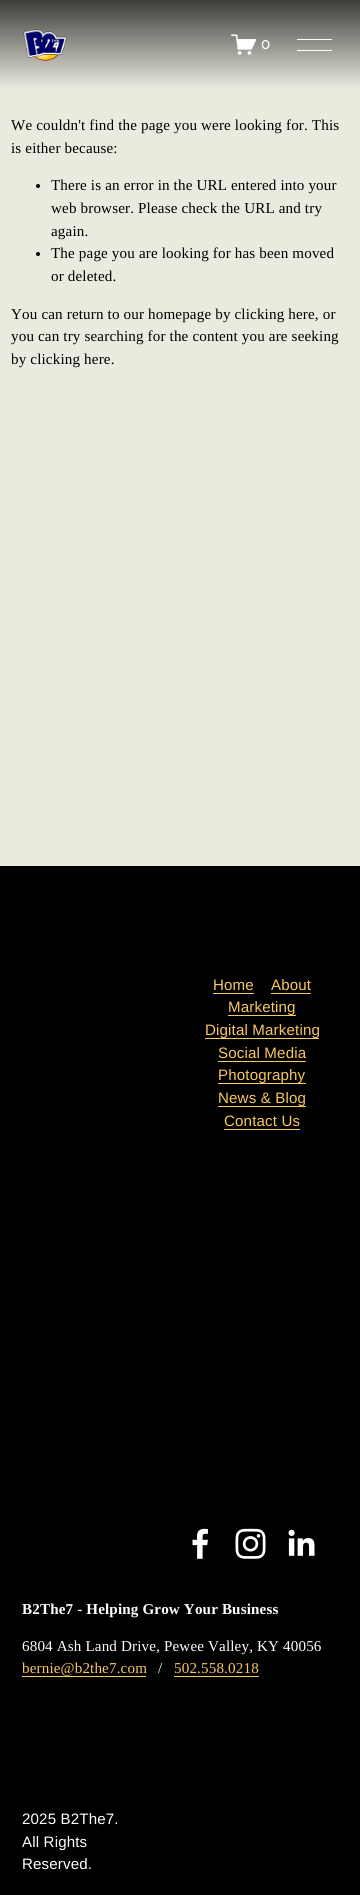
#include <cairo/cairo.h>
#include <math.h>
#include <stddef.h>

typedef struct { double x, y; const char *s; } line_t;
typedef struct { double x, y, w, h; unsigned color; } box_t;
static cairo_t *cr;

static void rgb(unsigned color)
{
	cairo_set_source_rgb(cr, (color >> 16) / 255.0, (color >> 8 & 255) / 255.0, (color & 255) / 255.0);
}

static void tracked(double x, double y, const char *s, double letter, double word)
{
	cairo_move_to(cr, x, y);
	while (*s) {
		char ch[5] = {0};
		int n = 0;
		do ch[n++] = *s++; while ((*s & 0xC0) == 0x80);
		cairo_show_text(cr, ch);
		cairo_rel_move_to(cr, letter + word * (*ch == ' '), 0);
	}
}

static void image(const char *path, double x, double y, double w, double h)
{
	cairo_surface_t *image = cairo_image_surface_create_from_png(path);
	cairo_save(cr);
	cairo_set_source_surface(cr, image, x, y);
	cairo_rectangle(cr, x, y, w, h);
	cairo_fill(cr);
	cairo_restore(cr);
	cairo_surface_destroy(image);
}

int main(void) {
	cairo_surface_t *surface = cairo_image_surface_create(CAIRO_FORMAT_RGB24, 360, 1895);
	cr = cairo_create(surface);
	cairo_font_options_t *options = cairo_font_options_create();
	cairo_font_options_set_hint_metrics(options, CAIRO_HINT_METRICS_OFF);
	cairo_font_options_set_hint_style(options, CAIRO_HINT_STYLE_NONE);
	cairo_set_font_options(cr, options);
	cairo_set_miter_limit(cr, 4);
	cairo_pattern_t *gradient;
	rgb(0xebeadf);
	cairo_paint(cr);
	gradient = cairo_pattern_create_linear(180, 0, 180, 89);
	cairo_pattern_add_color_stop_rgba(gradient, 0, 0.239, 0.239, 0.227, 1);
	cairo_pattern_add_color_stop_rgba(gradient, 1, 0.922, 0.918, 0.875, 1);
	cairo_set_source(cr, gradient);
	cairo_pattern_destroy(gradient);
	cairo_rectangle(cr, 0, 0, 360, 88);
	cairo_fill(cr);
	image("img/1.png", 23, 29, 44, 32);
	image("img/2.png", 231, 34, 25, 21);
	rgb(0xffffff);
	cairo_rectangle(cr, 297, 39, 35, 1);
	cairo_fill(cr);
	cairo_rectangle(cr, 297, 50, 35, 1);
	cairo_fill(cr);
	rgb(0x000000);
	cairo_arc(cr, 38, 186, 2, 0, 2 * M_PI);
	cairo_fill(cr);
	cairo_arc(cr, 38, 254, 2, 0, 2 * M_PI);
	cairo_fill(cr);
	{
		static const box_t items[] = {
			{0, 866, 360, 1029, 0x000000},
			{213, 993, 41, 1, 0xf8c761},
			{271, 993, 40, 1, 0xf8c761},
			{228, 1015, 68, 1, 0xf8c761},
			{205, 1038, 114, 1, 0xf8c761},
			{218, 1061, 88, 1, 0xf8c761},
			{218, 1083, 88, 1, 0xf8c761},
			{218, 1106, 88, 1, 0xf8c761},
			{224, 1129, 76, 1, 0xf8c761},
		};
		for (size_t i = 0; i < sizeof items / sizeof *items; i++) {
			rgb(items[i].color);
			cairo_rectangle(cr, items[i].x, items[i].y, items[i].w, items[i].h);
			cairo_fill(cr);
		}
	}
	image("img/3.png", 192, 1528, 16, 31);
	image("img/4.png", 235, 1528, 31, 31);
	image("img/5.png", 288, 1529, 27, 27);
	cairo_rectangle(cr, 22, 1676, 124, 1);
	cairo_fill(cr);
	cairo_rectangle(cr, 174, 1676, 85, 1);
	cairo_fill(cr);
	cairo_select_font_face(cr, "Raleway Medium", CAIRO_FONT_SLANT_NORMAL, CAIRO_FONT_WEIGHT_NORMAL);
	cairo_set_font_size(cr, 15.1);
	rgb(0xffffff);
	cairo_move_to(cr, 261, 49);
	cairo_show_text(cr, "0");
	cairo_select_font_face(cr, "Liberation Serif", CAIRO_FONT_SLANT_NORMAL, CAIRO_FONT_WEIGHT_NORMAL);
	rgb(0x000000);
	{
		static const line_t items[] = {
			{11, 130, "We couldn't find the page you were looking for. This"},
			{11, 153, "is either because:"},
			{51, 190, "There is an error in the URL entered into your"},
			{51, 213, "web browser. Please check the URL and try"},
			{51, 236, "again."},
			{51, 258, "The page you are looking for has been moved"},
			{51, 281, "or deleted."},
			{11, 319, "You can return to our homepage by clicking here, or"},
			{11, 341, "you can try searching for the content you are seeking"},
			{11, 364, "by clicking here."},
		};
		for (size_t i = 0; i < sizeof items / sizeof *items; i++) {
			tracked(items[i].x, items[i].y, items[i].s, 0.15, 0);
		}
	}
	cairo_select_font_face(cr, "Liberation Sans", CAIRO_FONT_SLANT_NORMAL, CAIRO_FONT_WEIGHT_NORMAL);
	rgb(0xf8c761);
	{
		static const line_t items[] = {
			{213, 990, "Home"},
			{271, 990, "About"},
			{228, 1012, "Marketing"},
			{205, 1035, "Digital Marketing"},
			{218, 1058, "Social Media"},
			{218, 1080, "Photography"},
			{218, 1103, "News & Blog"},
			{224, 1126, "Contact Us"},
		};
		for (size_t i = 0; i < sizeof items / sizeof *items; i++) {
			tracked(items[i].x, items[i].y, items[i].s, 0.15, 0);
		}
	}
	cairo_select_font_face(cr, "Liberation Serif", CAIRO_FONT_SLANT_NORMAL, CAIRO_FONT_WEIGHT_BOLD);
	rgb(0xffffff);
	tracked(22, 1614, "B2The7 - Helping Grow Your Business", 0.15, 0);
	cairo_select_font_face(cr, "Liberation Serif", CAIRO_FONT_SLANT_NORMAL, CAIRO_FONT_WEIGHT_NORMAL);
	tracked(22, 1651, "6804 Ash Land Drive, Pewee Valley, KY 40056", 0.15, 0);
	rgb(0xf8c761);
	tracked(22, 1673, "bernie@b2the7.com", 0.15, 0);
	rgb(0xffffff);
	tracked(158, 1673, "/", 0.15, 0);
	rgb(0xf8c761);
	tracked(174, 1673, "502.558.0218", 0.15, 0);
	cairo_select_font_face(cr, "Liberation Sans", CAIRO_FONT_SLANT_NORMAL, CAIRO_FONT_WEIGHT_NORMAL);
	rgb(0xffffff);
	{
		static const line_t items[] = {
			{22, 1824, "2025 B2The7."},
			{22, 1847, "All Rights"},
			{22, 1869, "Reserved."},
		};
		for (size_t i = 0; i < sizeof items / sizeof *items; i++) {
			tracked(items[i].x, items[i].y, items[i].s, 0.15, 0);
		}
	}
	cairo_surface_write_to_png(surface, "page.png");
	cairo_font_options_destroy(options);
	cairo_destroy(cr);
	cairo_surface_destroy(surface);
	return 0;
}
